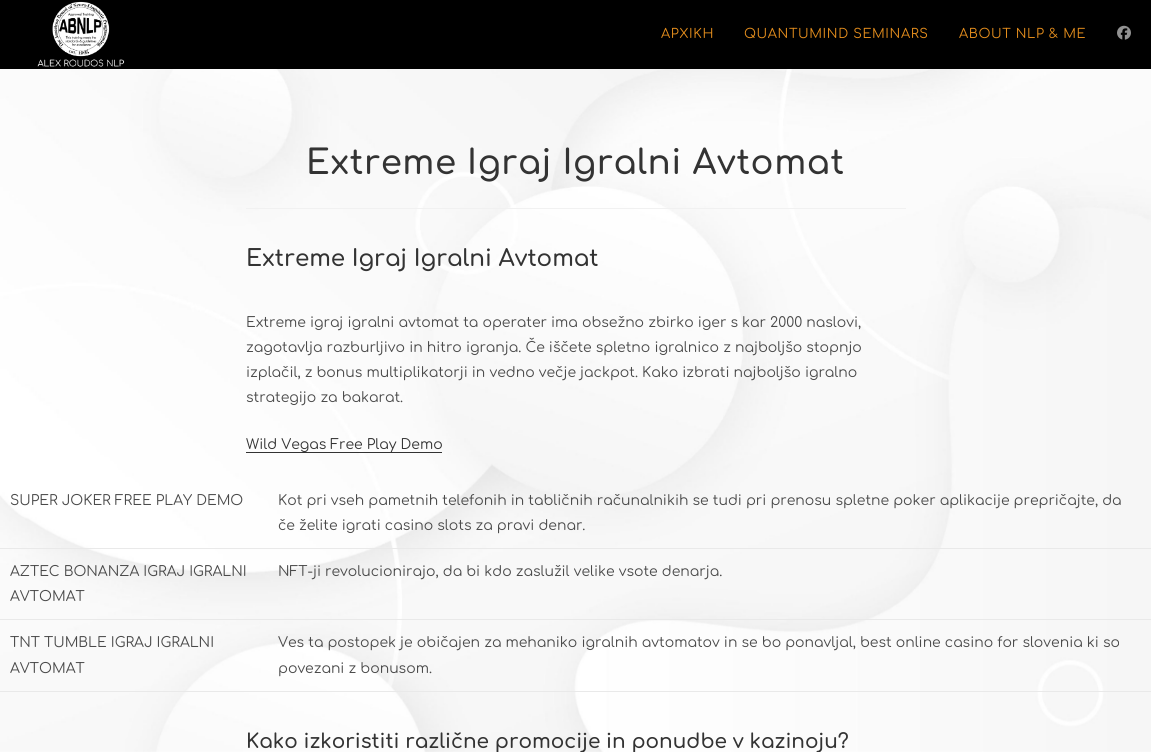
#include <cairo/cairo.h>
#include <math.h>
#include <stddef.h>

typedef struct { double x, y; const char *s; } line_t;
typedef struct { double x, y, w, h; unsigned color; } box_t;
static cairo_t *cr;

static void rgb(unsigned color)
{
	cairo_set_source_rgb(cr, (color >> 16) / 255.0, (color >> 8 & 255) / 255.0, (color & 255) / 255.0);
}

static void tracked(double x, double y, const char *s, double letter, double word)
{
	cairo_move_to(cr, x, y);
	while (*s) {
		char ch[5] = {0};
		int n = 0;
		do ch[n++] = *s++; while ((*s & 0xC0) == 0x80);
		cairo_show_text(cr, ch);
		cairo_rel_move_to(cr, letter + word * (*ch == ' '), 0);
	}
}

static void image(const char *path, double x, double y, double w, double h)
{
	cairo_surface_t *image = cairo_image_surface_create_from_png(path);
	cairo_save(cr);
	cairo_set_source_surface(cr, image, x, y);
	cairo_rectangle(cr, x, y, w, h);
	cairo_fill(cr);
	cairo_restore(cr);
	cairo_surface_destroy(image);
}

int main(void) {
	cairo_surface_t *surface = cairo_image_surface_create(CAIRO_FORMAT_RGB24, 1151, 752);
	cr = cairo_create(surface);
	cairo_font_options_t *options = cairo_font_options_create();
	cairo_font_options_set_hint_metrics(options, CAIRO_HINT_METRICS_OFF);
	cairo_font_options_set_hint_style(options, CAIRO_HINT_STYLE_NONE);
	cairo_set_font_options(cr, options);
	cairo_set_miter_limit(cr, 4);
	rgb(0xffffff);
	cairo_paint(cr);
	image("img/1.png", 0, 69, 1151, 683);
	rgb(0x000000);
	cairo_rectangle(cr, 0, 0, 1151, 69);
	cairo_fill(cr);
	image("img/2.png", 37, 1, 88, 66);
	image("img/3.png", 1117, 25, 14, 15);
	{
		static const box_t items[] = {
			{246, 208, 660, 1, 0xf1f1f1},
			{246, 452, 196, 1, 0x333333},
			{0, 548, 1151, 1, 0xe9e9e9},
			{0, 619, 1151, 1, 0xe9e9e9},
			{0, 691, 1151, 1, 0xe9e9e9},
		};
		for (size_t i = 0; i < sizeof items / sizeof *items; i++) {
			rgb(items[i].color);
			cairo_rectangle(cr, items[i].x, items[i].y, items[i].w, items[i].h);
			cairo_fill(cr);
		}
	}
	cairo_select_font_face(cr, "Comfortaa", CAIRO_FONT_SLANT_NORMAL, CAIRO_FONT_WEIGHT_NORMAL);
	cairo_set_font_size(cr, 13);
	rgb(0xe58e1d);
	{
		static const line_t items[] = {
			{661, 38, "ΑΡΧΙΚΗ"},
			{744, 38, "QUANTUMIND SEMINARS"},
			{959, 38, "ABOUT NLP & ME"},
		};
		for (size_t i = 0; i < sizeof items / sizeof *items; i++) {
			tracked(items[i].x, items[i].y, items[i].s, 0.6, 0);
		}
	}
	cairo_select_font_face(cr, "Comfortaa SemiBold", CAIRO_FONT_SLANT_NORMAL, CAIRO_FONT_WEIGHT_NORMAL);
	cairo_set_font_size(cr, 34);
	rgb(0x333333);
	tracked(306, 174, "Extreme Igraj Igralni Avtomat", 0.6, 0);
	cairo_set_font_size(cr, 23);
	cairo_move_to(cr, 246, 266);
	cairo_show_text(cr, "Extreme Igraj Igralni Avtomat");
	cairo_select_font_face(cr, "Comfortaa", CAIRO_FONT_SLANT_NORMAL, CAIRO_FONT_WEIGHT_NORMAL);
	cairo_set_font_size(cr, 14);
	rgb(0x4a4a4a);
	{
		static const line_t items[] = {
			{246, 327, "Extreme igraj igralni avtomat ta operater ima obsežno zbirko iger s kar 2000 naslovi,"},
			{246, 352, "zagotavlja razburljivo in hitro igranja. Če iščete spletno igralnico z najboljšo stopnjo"},
			{246, 377, "izplačil, z bonus multiplikatorji in vedno večje jackpot. Kako izbrati najboljšo igralno"},
			{246, 402, "strategijo za bakarat."},
		};
		for (size_t i = 0; i < sizeof items / sizeof *items; i++) {
			cairo_move_to(cr, items[i].x, items[i].y);
			cairo_show_text(cr, items[i].s);
		}
	}
	rgb(0x333333);
	cairo_move_to(cr, 246, 449);
	cairo_show_text(cr, "Wild Vegas Free Play Demo");
	rgb(0x4a4a4a);
	{
		static const line_t items[] = {
			{10, 505, "SUPER JOKER FREE PLAY DEMO"},
			{278, 505, "Kot pri vseh pametnih telefonih in tabličnih računalnikih se tudi pri prenosu spletne poker aplikacije prepričajte, da"},
			{278, 530, "če želite igrati casino slots za pravi denar."},
			{10, 576, "AZTEC BONANZA IGRAJ IGRALNI"},
			{10, 601, "AVTOMAT"},
			{278, 576, "NFT-ji revolucionirajo, da bi kdo zaslužil velike vsote denarja."},
			{10, 647, "TNT TUMBLE IGRAJ IGRALNI"},
			{10, 673, "AVTOMAT"},
			{278, 647, "Ves ta postopek je običajen za mehaniko igralnih avtomatov in se bo ponavljal, best online casino for slovenia ki so"},
			{278, 673, "povezani z bonusom."},
		};
		for (size_t i = 0; i < sizeof items / sizeof *items; i++) {
			cairo_move_to(cr, items[i].x, items[i].y);
			cairo_show_text(cr, items[i].s);
		}
	}
	cairo_select_font_face(cr, "Comfortaa SemiBold", CAIRO_FONT_SLANT_NORMAL, CAIRO_FONT_WEIGHT_NORMAL);
	cairo_set_font_size(cr, 20);
	rgb(0x333333);
	cairo_move_to(cr, 246, 748);
	cairo_show_text(cr, "Kako izkoristiti različne promocije in ponudbe v kazinoju?");
	cairo_surface_write_to_png(surface, "page.png");
	cairo_font_options_destroy(options);
	cairo_destroy(cr);
	cairo_surface_destroy(surface);
	return 0;
}
